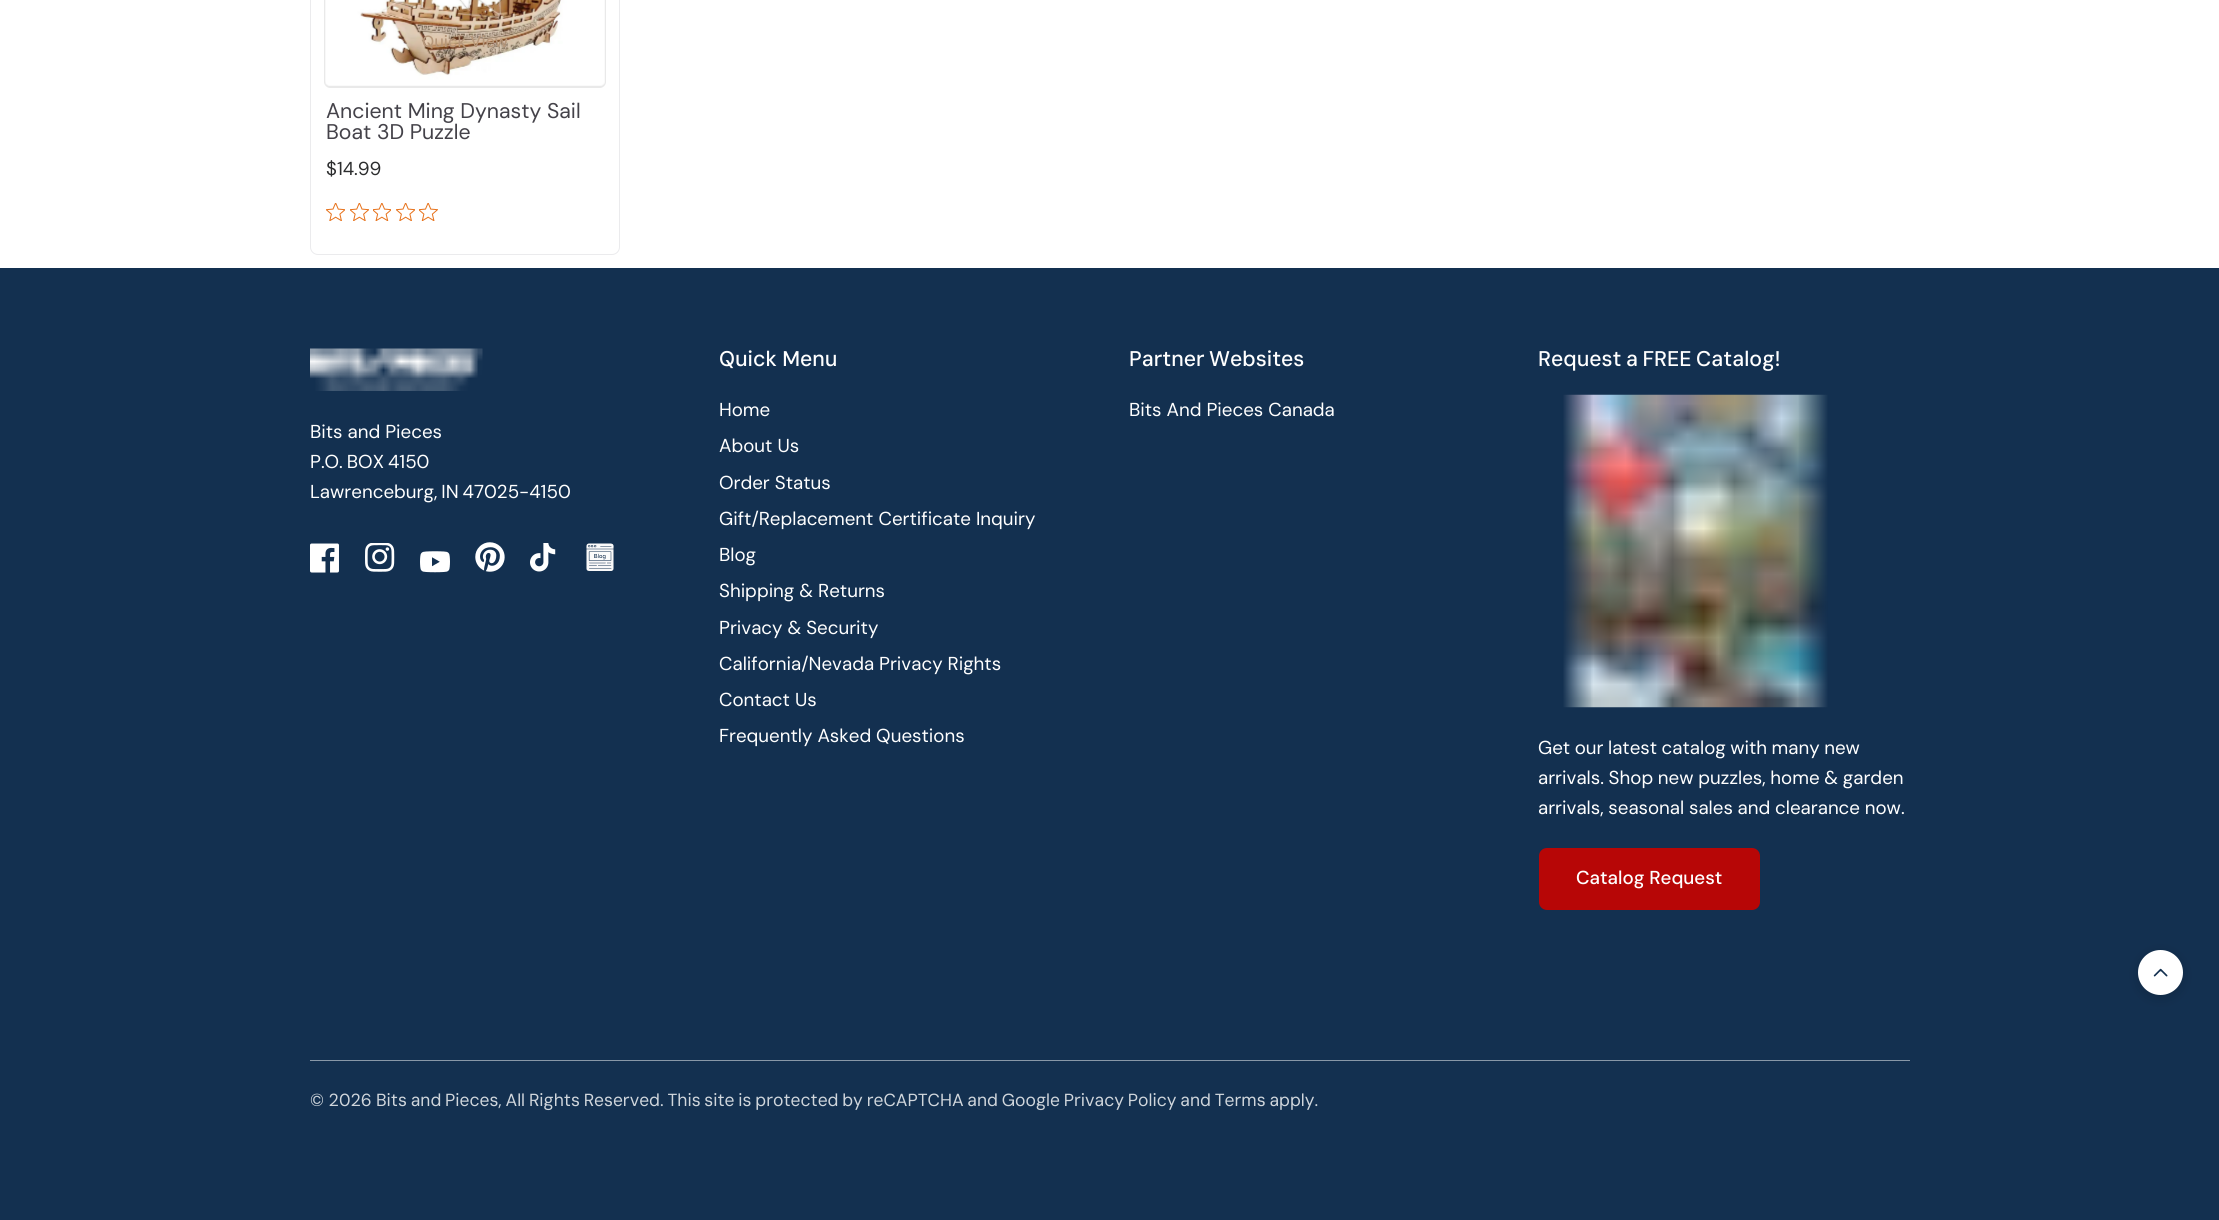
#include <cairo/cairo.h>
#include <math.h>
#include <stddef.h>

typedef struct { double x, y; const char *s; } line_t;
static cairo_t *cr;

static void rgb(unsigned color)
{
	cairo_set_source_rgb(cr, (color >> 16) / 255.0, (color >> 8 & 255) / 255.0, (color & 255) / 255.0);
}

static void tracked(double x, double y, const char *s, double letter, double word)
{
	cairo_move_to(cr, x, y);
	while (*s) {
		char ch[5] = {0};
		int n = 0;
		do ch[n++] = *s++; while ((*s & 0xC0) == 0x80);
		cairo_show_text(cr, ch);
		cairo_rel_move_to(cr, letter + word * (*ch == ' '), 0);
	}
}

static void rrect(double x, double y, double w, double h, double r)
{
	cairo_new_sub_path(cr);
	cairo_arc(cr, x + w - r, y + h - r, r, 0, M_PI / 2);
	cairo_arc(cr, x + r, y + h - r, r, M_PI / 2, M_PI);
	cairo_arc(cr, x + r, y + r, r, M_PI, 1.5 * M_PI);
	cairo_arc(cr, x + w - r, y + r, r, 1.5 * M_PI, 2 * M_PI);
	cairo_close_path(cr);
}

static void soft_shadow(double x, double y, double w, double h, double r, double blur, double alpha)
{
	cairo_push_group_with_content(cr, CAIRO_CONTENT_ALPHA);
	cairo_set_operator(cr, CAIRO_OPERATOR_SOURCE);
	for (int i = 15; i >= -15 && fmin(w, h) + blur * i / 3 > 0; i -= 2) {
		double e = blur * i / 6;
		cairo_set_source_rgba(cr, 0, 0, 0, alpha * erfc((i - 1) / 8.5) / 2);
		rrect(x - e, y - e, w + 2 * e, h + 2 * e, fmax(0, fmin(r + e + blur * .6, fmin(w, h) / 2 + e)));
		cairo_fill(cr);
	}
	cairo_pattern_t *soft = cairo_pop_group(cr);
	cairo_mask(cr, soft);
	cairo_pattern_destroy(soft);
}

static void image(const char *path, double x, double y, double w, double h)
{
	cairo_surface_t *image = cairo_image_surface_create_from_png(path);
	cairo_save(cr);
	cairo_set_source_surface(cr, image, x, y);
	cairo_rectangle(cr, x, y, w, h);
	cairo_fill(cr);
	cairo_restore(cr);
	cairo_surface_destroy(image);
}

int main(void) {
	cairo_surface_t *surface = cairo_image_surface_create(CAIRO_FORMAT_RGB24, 2219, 1220);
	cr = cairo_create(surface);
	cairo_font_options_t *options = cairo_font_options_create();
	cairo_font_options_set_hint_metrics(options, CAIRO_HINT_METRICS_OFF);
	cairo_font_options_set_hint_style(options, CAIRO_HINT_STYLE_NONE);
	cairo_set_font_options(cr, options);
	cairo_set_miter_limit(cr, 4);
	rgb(0xffffff);
	cairo_paint(cr);
	rrect(310.5, -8.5, 309, 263, 7.5);
	rgb(0xebebed);
	cairo_set_line_width(cr, 1);
	cairo_stroke(cr);
	rgb(0xe9e9e9);
	cairo_new_path(cr);
	cairo_move_to(cr, 330, -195);
	cairo_line_to(cr, 600, -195);
	cairo_curve_to(cr, 603, -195, 606, -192, 606, -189);
	cairo_line_to(cr, 606, 82);
	cairo_curve_to(cr, 606, 85, 603, 88, 600, 88);
	cairo_line_to(cr, 330, 88);
	cairo_curve_to(cr, 327, 88, 324, 85, 324, 82);
	cairo_line_to(cr, 324, -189);
	cairo_curve_to(cr, 324, -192, 327, -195, 330, -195);
	cairo_close_path(cr);
	cairo_fill(cr);
	image("img/1.png", 325, 0, 280, 86);
	image("img/2.png", 326, 203, 19, 18);
	image("img/3.png", 350, 203, 19, 18);
	image("img/4.png", 373, 203, 18, 18);
	image("img/2.png", 396, 203, 19, 18);
	image("img/5.png", 419, 203, 19, 18);
	rgb(0x133050);
	cairo_rectangle(cr, 0, 268, 2219, 952);
	cairo_fill(cr);
	image("img/6.png", 310, 348, 173, 43);
	image("img/7.png", 310, 543, 29, 30);
	image("img/8.png", 365, 543, 30, 29);
	image("img/9.png", 420, 551, 30, 22);
	image("img/10.png", 475, 542, 30, 30);
	image("img/11.png", 530, 543, 26, 29);
	image("img/12.png", 586, 543, 28, 28);
	image("img/13.png", 1563, 394, 265, 314);
	rgb(0xb70606);
	rrect(1539, 848, 221, 62, 8);
	cairo_fill(cr);
	rgb(0x8998a8);
	cairo_rectangle(cr, 310, 1060, 1600, 1);
	cairo_fill(cr);
	rgb(0x000000);
	soft_shadow(2138, 953, 45, 45, 22.5, 6, 0.15);
	rgb(0xffffff);
	cairo_arc(cr, 2160.5, 972.5, 22.5, 0, 2 * M_PI);
	cairo_fill(cr);
	image("img/14.png", 2153, 968, 15, 9);
	cairo_select_font_face(cr, "DM Sans Medium", CAIRO_FONT_SLANT_NORMAL, CAIRO_FONT_WEIGHT_NORMAL);
	cairo_set_font_size(cr, 16.25);
	rgb(0xb6977a);
	cairo_move_to(cr, 422, 47);
	cairo_show_text(cr, "Quick View");
	cairo_select_font_face(cr, "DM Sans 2", CAIRO_FONT_SLANT_NORMAL, CAIRO_FONT_WEIGHT_NORMAL);
	cairo_set_font_size(cr, 21.25);
	rgb(0x444249);
	cairo_move_to(cr, 326, 118);
	cairo_show_text(cr, "Ancient Ming Dynasty Sail");
	cairo_move_to(cr, 326, 139);
	cairo_show_text(cr, "Boat 3D Puzzle");
	cairo_select_font_face(cr, "DM Sans", CAIRO_FONT_SLANT_NORMAL, CAIRO_FONT_WEIGHT_NORMAL);
	cairo_set_font_size(cr, 18.75);
	rgb(0x2c2d2e);
	cairo_move_to(cr, 326, 175);
	cairo_show_text(cr, "$14.99");
	rgb(0xffffff);
	cairo_move_to(cr, 310, 438);
	cairo_show_text(cr, "Bits and Pieces");
	tracked(310, 468, "P.O. BOX 4150", 0, -1);
	tracked(310, 498, "Lawrenceburg, IN 47025-4150", 0, -1);
	cairo_select_font_face(cr, "DM Sans Medium", CAIRO_FONT_SLANT_NORMAL, CAIRO_FONT_WEIGHT_NORMAL);
	cairo_set_font_size(cr, 21.25);
	cairo_move_to(cr, 719, 366);
	cairo_show_text(cr, "Quick Menu");
	cairo_select_font_face(cr, "DM Sans", CAIRO_FONT_SLANT_NORMAL, CAIRO_FONT_WEIGHT_NORMAL);
	cairo_set_font_size(cr, 18.75);
	{
		static const line_t items[] = {
			{719, 416, "Home"},
			{719, 452, "About Us"},
			{719, 489, "Order Status"},
			{719, 525, "Gift/Replacement Certificate Inquiry"},
			{719, 561, "Blog"},
			{719, 597, "Shipping & Returns"},
			{719, 634, "Privacy & Security"},
			{719, 670, "California/Nevada Privacy Rights"},
			{719, 706, "Contact Us"},
			{719, 742, "Frequently Asked Questions"},
		};
		for (size_t i = 0; i < sizeof items / sizeof *items; i++) {
			cairo_move_to(cr, items[i].x, items[i].y);
			cairo_show_text(cr, items[i].s);
		}
	}
	cairo_select_font_face(cr, "DM Sans Medium", CAIRO_FONT_SLANT_NORMAL, CAIRO_FONT_WEIGHT_NORMAL);
	cairo_set_font_size(cr, 21.25);
	tracked(1129, 366, "Partner Websites", 0, -1);
	cairo_select_font_face(cr, "DM Sans", CAIRO_FONT_SLANT_NORMAL, CAIRO_FONT_WEIGHT_NORMAL);
	cairo_set_font_size(cr, 18.75);
	cairo_move_to(cr, 1129, 416);
	cairo_show_text(cr, "Bits And Pieces Canada");
	cairo_select_font_face(cr, "DM Sans Medium", CAIRO_FONT_SLANT_NORMAL, CAIRO_FONT_WEIGHT_NORMAL);
	cairo_set_font_size(cr, 21.25);
	tracked(1538, 366, "Request a FREE Catalog!", 0, -1);
	cairo_select_font_face(cr, "DM Sans", CAIRO_FONT_SLANT_NORMAL, CAIRO_FONT_WEIGHT_NORMAL);
	cairo_set_font_size(cr, 18.75);
	tracked(1538, 754, "Get our latest catalog with many new", 0, -0.5);
	tracked(1538, 784, "arrivals. Shop new puzzles, home & garden", 0, -0.25);
	tracked(1538, 814, "arrivals, seasonal sales and clearance now.", 0, -0.25);
	cairo_select_font_face(cr, "DM Sans 2 Medium", CAIRO_FONT_SLANT_NORMAL, CAIRO_FONT_WEIGHT_NORMAL);
	cairo_move_to(cr, 1576, 884);
	cairo_show_text(cr, "Catalog Request");
	cairo_select_font_face(cr, "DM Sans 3", CAIRO_FONT_SLANT_NORMAL, CAIRO_FONT_WEIGHT_NORMAL);
	cairo_set_font_size(cr, 17.5);
	rgb(0xd0d6dc);
	cairo_move_to(cr, 310, 1106);
	cairo_show_text(cr, "© 2026");
	tracked(376, 1106, "Bits and Pieces, All Rights Reserved. This site is protected by reCAPTCHA and Google Privacy Policy and Terms apply.", 0, -0.9);
	cairo_surface_write_to_png(surface, "page.png");
	cairo_font_options_destroy(options);
	cairo_destroy(cr);
	cairo_surface_destroy(surface);
	return 0;
}
